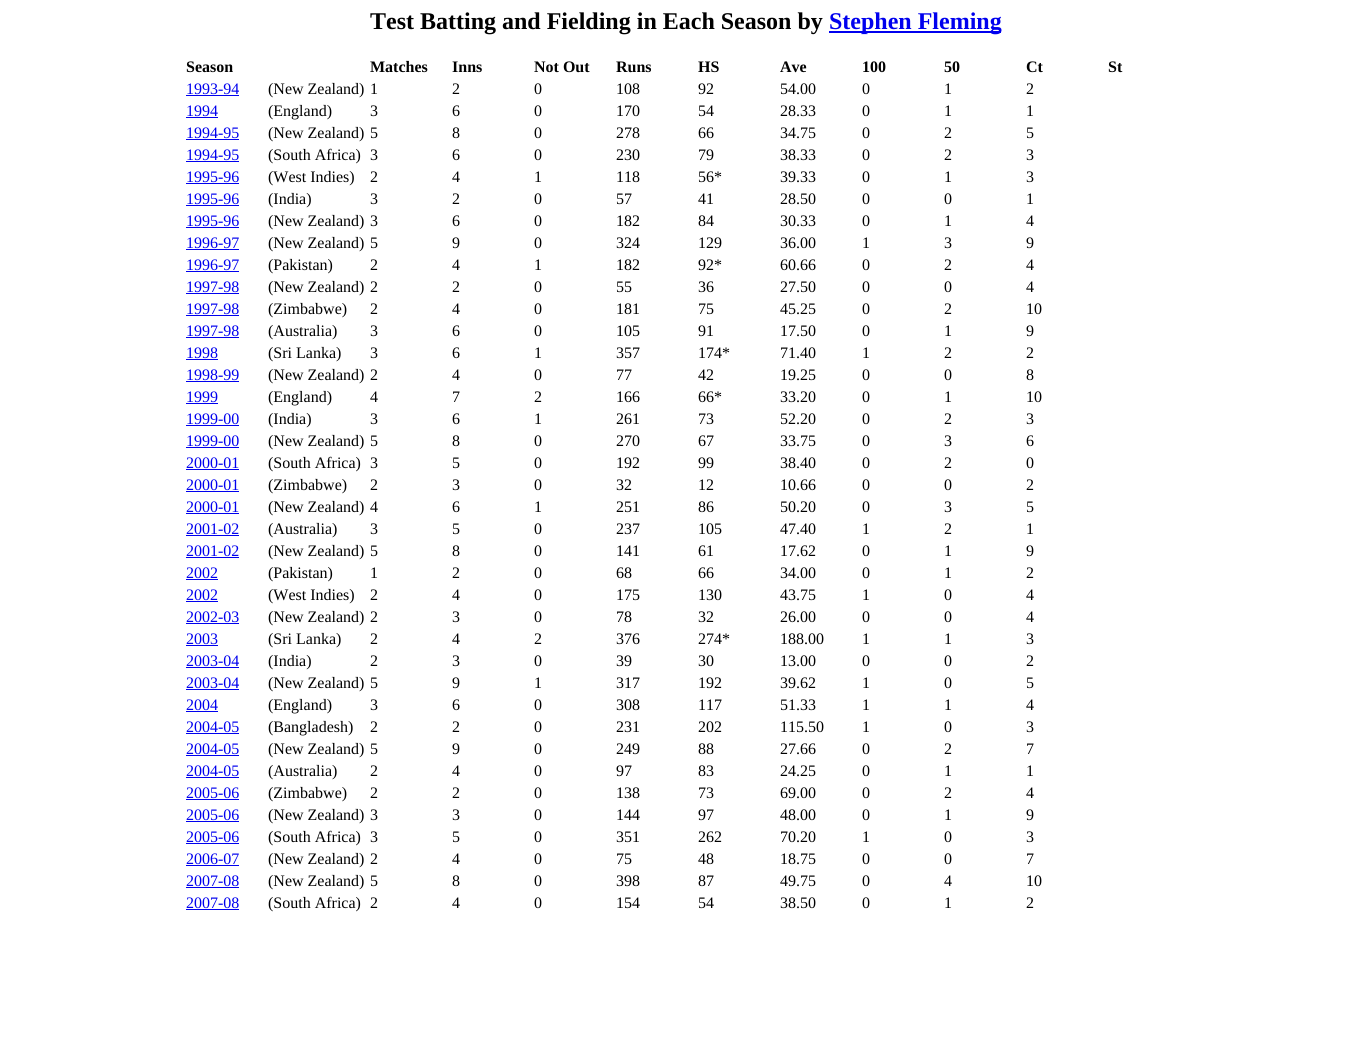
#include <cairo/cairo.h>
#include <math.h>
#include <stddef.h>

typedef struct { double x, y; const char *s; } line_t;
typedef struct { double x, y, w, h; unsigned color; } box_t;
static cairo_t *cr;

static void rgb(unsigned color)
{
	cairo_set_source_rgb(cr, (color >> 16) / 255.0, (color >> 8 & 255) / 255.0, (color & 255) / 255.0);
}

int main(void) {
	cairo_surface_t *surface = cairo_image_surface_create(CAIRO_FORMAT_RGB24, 1371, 1062);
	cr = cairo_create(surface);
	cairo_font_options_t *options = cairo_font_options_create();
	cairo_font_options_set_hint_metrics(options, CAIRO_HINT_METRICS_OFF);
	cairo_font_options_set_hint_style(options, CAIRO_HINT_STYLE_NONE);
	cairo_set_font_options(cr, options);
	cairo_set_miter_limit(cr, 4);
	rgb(0xffffff);
	cairo_paint(cr);
	{
		static const box_t items[] = {
			{829, 31, 172, 2, 0x0000ee},
			{186, 95, 53, 1, 0x0000ee},
			{186, 117, 32, 1, 0x0000ee},
			{186, 139, 53, 1, 0x0000ee},
			{186, 161, 53, 1, 0x0000ee},
			{186, 183, 53, 1, 0x0000ee},
			{186, 205, 53, 1, 0x0000ee},
			{186, 227, 53, 1, 0x0000ee},
			{186, 249, 53, 1, 0x0000ee},
			{186, 271, 53, 1, 0x0000ee},
			{186, 293, 53, 1, 0x0000ee},
			{186, 315, 53, 1, 0x0000ee},
			{186, 337, 53, 1, 0x0000ee},
			{186, 359, 32, 1, 0x0000ee},
			{186, 381, 53, 1, 0x0000ee},
			{186, 403, 32, 1, 0x0000ee},
			{186, 425, 53, 1, 0x0000ee},
			{186, 447, 53, 1, 0x0000ee},
			{186, 469, 53, 1, 0x0000ee},
			{186, 491, 53, 1, 0x0000ee},
			{186, 513, 53, 1, 0x0000ee},
			{186, 535, 53, 1, 0x0000ee},
			{186, 557, 53, 1, 0x0000ee},
			{186, 579, 32, 1, 0x0000ee},
			{186, 601, 32, 1, 0x0000ee},
			{186, 623, 53, 1, 0x0000ee},
			{186, 645, 32, 1, 0x0000ee},
			{186, 667, 53, 1, 0x0000ee},
			{186, 689, 53, 1, 0x0000ee},
			{186, 711, 32, 1, 0x0000ee},
			{186, 733, 53, 1, 0x0000ee},
			{186, 755, 53, 1, 0x0000ee},
			{186, 777, 53, 1, 0x0000ee},
			{186, 799, 53, 1, 0x0000ee},
			{186, 821, 53, 1, 0x0000ee},
			{186, 843, 53, 1, 0x0000ee},
			{186, 865, 53, 1, 0x0000ee},
			{186, 887, 53, 1, 0x0000ee},
			{186, 909, 53, 1, 0x0000ee},
		};
		for (size_t i = 0; i < sizeof items / sizeof *items; i++) {
			rgb(items[i].color);
			cairo_rectangle(cr, items[i].x, items[i].y, items[i].w, items[i].h);
			cairo_fill(cr);
		}
	}
	cairo_select_font_face(cr, "Liberation Serif", CAIRO_FONT_SLANT_NORMAL, CAIRO_FONT_WEIGHT_BOLD);
	cairo_set_font_size(cr, 24);
	rgb(0x000000);
	cairo_move_to(cr, 370, 29);
	cairo_show_text(cr, "Test Batting and Fielding in Each Season by");
	rgb(0x0000ee);
	cairo_move_to(cr, 829, 29);
	cairo_show_text(cr, "Stephen Fleming");
	cairo_set_font_size(cr, 16);
	rgb(0x000000);
	{
		static const line_t items[] = {
			{186, 72, "Season"},
			{370, 72, "Matches"},
			{452, 72, "Inns"},
			{534, 72, "Not Out"},
			{616, 72, "Runs"},
			{698, 72, "HS"},
			{780, 72, "Ave"},
			{862, 72, "100"},
			{944, 72, "50"},
			{1026, 72, "Ct"},
			{1108, 72, "St"},
		};
		for (size_t i = 0; i < sizeof items / sizeof *items; i++) {
			cairo_move_to(cr, items[i].x, items[i].y);
			cairo_show_text(cr, items[i].s);
		}
	}
	cairo_select_font_face(cr, "Liberation Serif", CAIRO_FONT_SLANT_NORMAL, CAIRO_FONT_WEIGHT_NORMAL);
	rgb(0x0000ee);
	cairo_move_to(cr, 186, 94);
	cairo_show_text(cr, "1993-94");
	rgb(0x000000);
	{
		static const line_t items[] = {
			{268, 94, "(New Zealand)"},
			{370, 94, "1"},
			{452, 94, "2"},
			{534, 94, "0"},
			{616, 94, "108"},
			{698, 94, "92"},
			{780, 94, "54.00"},
			{862, 94, "0"},
			{944, 94, "1"},
			{1026, 94, "2"},
		};
		for (size_t i = 0; i < sizeof items / sizeof *items; i++) {
			cairo_move_to(cr, items[i].x, items[i].y);
			cairo_show_text(cr, items[i].s);
		}
	}
	rgb(0x0000ee);
	cairo_move_to(cr, 186, 116);
	cairo_show_text(cr, "1994");
	rgb(0x000000);
	{
		static const line_t items[] = {
			{268, 116, "(England)"},
			{370, 116, "3"},
			{452, 116, "6"},
			{534, 116, "0"},
			{616, 116, "170"},
			{698, 116, "54"},
			{780, 116, "28.33"},
			{862, 116, "0"},
			{944, 116, "1"},
			{1026, 116, "1"},
		};
		for (size_t i = 0; i < sizeof items / sizeof *items; i++) {
			cairo_move_to(cr, items[i].x, items[i].y);
			cairo_show_text(cr, items[i].s);
		}
	}
	rgb(0x0000ee);
	cairo_move_to(cr, 186, 138);
	cairo_show_text(cr, "1994-95");
	rgb(0x000000);
	{
		static const line_t items[] = {
			{268, 138, "(New Zealand)"},
			{370, 138, "5"},
			{452, 138, "8"},
			{534, 138, "0"},
			{616, 138, "278"},
			{698, 138, "66"},
			{780, 138, "34.75"},
			{862, 138, "0"},
			{944, 138, "2"},
			{1026, 138, "5"},
		};
		for (size_t i = 0; i < sizeof items / sizeof *items; i++) {
			cairo_move_to(cr, items[i].x, items[i].y);
			cairo_show_text(cr, items[i].s);
		}
	}
	rgb(0x0000ee);
	cairo_move_to(cr, 186, 160);
	cairo_show_text(cr, "1994-95");
	rgb(0x000000);
	{
		static const line_t items[] = {
			{268, 160, "(South Africa)"},
			{370, 160, "3"},
			{452, 160, "6"},
			{534, 160, "0"},
			{616, 160, "230"},
			{698, 160, "79"},
			{780, 160, "38.33"},
			{862, 160, "0"},
			{944, 160, "2"},
			{1026, 160, "3"},
		};
		for (size_t i = 0; i < sizeof items / sizeof *items; i++) {
			cairo_move_to(cr, items[i].x, items[i].y);
			cairo_show_text(cr, items[i].s);
		}
	}
	rgb(0x0000ee);
	cairo_move_to(cr, 186, 182);
	cairo_show_text(cr, "1995-96");
	rgb(0x000000);
	{
		static const line_t items[] = {
			{268, 182, "(West Indies)"},
			{370, 182, "2"},
			{452, 182, "4"},
			{534, 182, "1"},
			{616, 182, "118"},
			{698, 182, "56*"},
			{780, 182, "39.33"},
			{862, 182, "0"},
			{944, 182, "1"},
			{1026, 182, "3"},
		};
		for (size_t i = 0; i < sizeof items / sizeof *items; i++) {
			cairo_move_to(cr, items[i].x, items[i].y);
			cairo_show_text(cr, items[i].s);
		}
	}
	rgb(0x0000ee);
	cairo_move_to(cr, 186, 204);
	cairo_show_text(cr, "1995-96");
	rgb(0x000000);
	{
		static const line_t items[] = {
			{268, 204, "(India)"},
			{370, 204, "3"},
			{452, 204, "2"},
			{534, 204, "0"},
			{616, 204, "57"},
			{698, 204, "41"},
			{780, 204, "28.50"},
			{862, 204, "0"},
			{944, 204, "0"},
			{1026, 204, "1"},
		};
		for (size_t i = 0; i < sizeof items / sizeof *items; i++) {
			cairo_move_to(cr, items[i].x, items[i].y);
			cairo_show_text(cr, items[i].s);
		}
	}
	rgb(0x0000ee);
	cairo_move_to(cr, 186, 226);
	cairo_show_text(cr, "1995-96");
	rgb(0x000000);
	{
		static const line_t items[] = {
			{268, 226, "(New Zealand)"},
			{370, 226, "3"},
			{452, 226, "6"},
			{534, 226, "0"},
			{616, 226, "182"},
			{698, 226, "84"},
			{780, 226, "30.33"},
			{862, 226, "0"},
			{944, 226, "1"},
			{1026, 226, "4"},
		};
		for (size_t i = 0; i < sizeof items / sizeof *items; i++) {
			cairo_move_to(cr, items[i].x, items[i].y);
			cairo_show_text(cr, items[i].s);
		}
	}
	rgb(0x0000ee);
	cairo_move_to(cr, 186, 248);
	cairo_show_text(cr, "1996-97");
	rgb(0x000000);
	{
		static const line_t items[] = {
			{268, 248, "(New Zealand)"},
			{370, 248, "5"},
			{452, 248, "9"},
			{534, 248, "0"},
			{616, 248, "324"},
			{698, 248, "129"},
			{780, 248, "36.00"},
			{862, 248, "1"},
			{944, 248, "3"},
			{1026, 248, "9"},
		};
		for (size_t i = 0; i < sizeof items / sizeof *items; i++) {
			cairo_move_to(cr, items[i].x, items[i].y);
			cairo_show_text(cr, items[i].s);
		}
	}
	rgb(0x0000ee);
	cairo_move_to(cr, 186, 270);
	cairo_show_text(cr, "1996-97");
	rgb(0x000000);
	{
		static const line_t items[] = {
			{268, 270, "(Pakistan)"},
			{370, 270, "2"},
			{452, 270, "4"},
			{534, 270, "1"},
			{616, 270, "182"},
			{698, 270, "92*"},
			{780, 270, "60.66"},
			{862, 270, "0"},
			{944, 270, "2"},
			{1026, 270, "4"},
		};
		for (size_t i = 0; i < sizeof items / sizeof *items; i++) {
			cairo_move_to(cr, items[i].x, items[i].y);
			cairo_show_text(cr, items[i].s);
		}
	}
	rgb(0x0000ee);
	cairo_move_to(cr, 186, 292);
	cairo_show_text(cr, "1997-98");
	rgb(0x000000);
	{
		static const line_t items[] = {
			{268, 292, "(New Zealand)"},
			{370, 292, "2"},
			{452, 292, "2"},
			{534, 292, "0"},
			{616, 292, "55"},
			{698, 292, "36"},
			{780, 292, "27.50"},
			{862, 292, "0"},
			{944, 292, "0"},
			{1026, 292, "4"},
		};
		for (size_t i = 0; i < sizeof items / sizeof *items; i++) {
			cairo_move_to(cr, items[i].x, items[i].y);
			cairo_show_text(cr, items[i].s);
		}
	}
	rgb(0x0000ee);
	cairo_move_to(cr, 186, 314);
	cairo_show_text(cr, "1997-98");
	rgb(0x000000);
	{
		static const line_t items[] = {
			{268, 314, "(Zimbabwe)"},
			{370, 314, "2"},
			{452, 314, "4"},
			{534, 314, "0"},
			{616, 314, "181"},
			{698, 314, "75"},
			{780, 314, "45.25"},
			{862, 314, "0"},
			{944, 314, "2"},
			{1026, 314, "10"},
		};
		for (size_t i = 0; i < sizeof items / sizeof *items; i++) {
			cairo_move_to(cr, items[i].x, items[i].y);
			cairo_show_text(cr, items[i].s);
		}
	}
	rgb(0x0000ee);
	cairo_move_to(cr, 186, 336);
	cairo_show_text(cr, "1997-98");
	rgb(0x000000);
	{
		static const line_t items[] = {
			{268, 336, "(Australia)"},
			{370, 336, "3"},
			{452, 336, "6"},
			{534, 336, "0"},
			{616, 336, "105"},
			{698, 336, "91"},
			{780, 336, "17.50"},
			{862, 336, "0"},
			{944, 336, "1"},
			{1026, 336, "9"},
		};
		for (size_t i = 0; i < sizeof items / sizeof *items; i++) {
			cairo_move_to(cr, items[i].x, items[i].y);
			cairo_show_text(cr, items[i].s);
		}
	}
	rgb(0x0000ee);
	cairo_move_to(cr, 186, 358);
	cairo_show_text(cr, "1998");
	rgb(0x000000);
	{
		static const line_t items[] = {
			{268, 358, "(Sri Lanka)"},
			{370, 358, "3"},
			{452, 358, "6"},
			{534, 358, "1"},
			{616, 358, "357"},
			{698, 358, "174*"},
			{780, 358, "71.40"},
			{862, 358, "1"},
			{944, 358, "2"},
			{1026, 358, "2"},
		};
		for (size_t i = 0; i < sizeof items / sizeof *items; i++) {
			cairo_move_to(cr, items[i].x, items[i].y);
			cairo_show_text(cr, items[i].s);
		}
	}
	rgb(0x0000ee);
	cairo_move_to(cr, 186, 380);
	cairo_show_text(cr, "1998-99");
	rgb(0x000000);
	{
		static const line_t items[] = {
			{268, 380, "(New Zealand)"},
			{370, 380, "2"},
			{452, 380, "4"},
			{534, 380, "0"},
			{616, 380, "77"},
			{698, 380, "42"},
			{780, 380, "19.25"},
			{862, 380, "0"},
			{944, 380, "0"},
			{1026, 380, "8"},
		};
		for (size_t i = 0; i < sizeof items / sizeof *items; i++) {
			cairo_move_to(cr, items[i].x, items[i].y);
			cairo_show_text(cr, items[i].s);
		}
	}
	rgb(0x0000ee);
	cairo_move_to(cr, 186, 402);
	cairo_show_text(cr, "1999");
	rgb(0x000000);
	{
		static const line_t items[] = {
			{268, 402, "(England)"},
			{370, 402, "4"},
			{452, 402, "7"},
			{534, 402, "2"},
			{616, 402, "166"},
			{698, 402, "66*"},
			{780, 402, "33.20"},
			{862, 402, "0"},
			{944, 402, "1"},
			{1026, 402, "10"},
		};
		for (size_t i = 0; i < sizeof items / sizeof *items; i++) {
			cairo_move_to(cr, items[i].x, items[i].y);
			cairo_show_text(cr, items[i].s);
		}
	}
	rgb(0x0000ee);
	cairo_move_to(cr, 186, 424);
	cairo_show_text(cr, "1999-00");
	rgb(0x000000);
	{
		static const line_t items[] = {
			{268, 424, "(India)"},
			{370, 424, "3"},
			{452, 424, "6"},
			{534, 424, "1"},
			{616, 424, "261"},
			{698, 424, "73"},
			{780, 424, "52.20"},
			{862, 424, "0"},
			{944, 424, "2"},
			{1026, 424, "3"},
		};
		for (size_t i = 0; i < sizeof items / sizeof *items; i++) {
			cairo_move_to(cr, items[i].x, items[i].y);
			cairo_show_text(cr, items[i].s);
		}
	}
	rgb(0x0000ee);
	cairo_move_to(cr, 186, 446);
	cairo_show_text(cr, "1999-00");
	rgb(0x000000);
	{
		static const line_t items[] = {
			{268, 446, "(New Zealand)"},
			{370, 446, "5"},
			{452, 446, "8"},
			{534, 446, "0"},
			{616, 446, "270"},
			{698, 446, "67"},
			{780, 446, "33.75"},
			{862, 446, "0"},
			{944, 446, "3"},
			{1026, 446, "6"},
		};
		for (size_t i = 0; i < sizeof items / sizeof *items; i++) {
			cairo_move_to(cr, items[i].x, items[i].y);
			cairo_show_text(cr, items[i].s);
		}
	}
	rgb(0x0000ee);
	cairo_move_to(cr, 186, 468);
	cairo_show_text(cr, "2000-01");
	rgb(0x000000);
	{
		static const line_t items[] = {
			{268, 468, "(South Africa)"},
			{370, 468, "3"},
			{452, 468, "5"},
			{534, 468, "0"},
			{616, 468, "192"},
			{698, 468, "99"},
			{780, 468, "38.40"},
			{862, 468, "0"},
			{944, 468, "2"},
			{1026, 468, "0"},
		};
		for (size_t i = 0; i < sizeof items / sizeof *items; i++) {
			cairo_move_to(cr, items[i].x, items[i].y);
			cairo_show_text(cr, items[i].s);
		}
	}
	rgb(0x0000ee);
	cairo_move_to(cr, 186, 490);
	cairo_show_text(cr, "2000-01");
	rgb(0x000000);
	{
		static const line_t items[] = {
			{268, 490, "(Zimbabwe)"},
			{370, 490, "2"},
			{452, 490, "3"},
			{534, 490, "0"},
			{616, 490, "32"},
			{698, 490, "12"},
			{780, 490, "10.66"},
			{862, 490, "0"},
			{944, 490, "0"},
			{1026, 490, "2"},
		};
		for (size_t i = 0; i < sizeof items / sizeof *items; i++) {
			cairo_move_to(cr, items[i].x, items[i].y);
			cairo_show_text(cr, items[i].s);
		}
	}
	rgb(0x0000ee);
	cairo_move_to(cr, 186, 512);
	cairo_show_text(cr, "2000-01");
	rgb(0x000000);
	{
		static const line_t items[] = {
			{268, 512, "(New Zealand)"},
			{370, 512, "4"},
			{452, 512, "6"},
			{534, 512, "1"},
			{616, 512, "251"},
			{698, 512, "86"},
			{780, 512, "50.20"},
			{862, 512, "0"},
			{944, 512, "3"},
			{1026, 512, "5"},
		};
		for (size_t i = 0; i < sizeof items / sizeof *items; i++) {
			cairo_move_to(cr, items[i].x, items[i].y);
			cairo_show_text(cr, items[i].s);
		}
	}
	rgb(0x0000ee);
	cairo_move_to(cr, 186, 534);
	cairo_show_text(cr, "2001-02");
	rgb(0x000000);
	{
		static const line_t items[] = {
			{268, 534, "(Australia)"},
			{370, 534, "3"},
			{452, 534, "5"},
			{534, 534, "0"},
			{616, 534, "237"},
			{698, 534, "105"},
			{780, 534, "47.40"},
			{862, 534, "1"},
			{944, 534, "2"},
			{1026, 534, "1"},
		};
		for (size_t i = 0; i < sizeof items / sizeof *items; i++) {
			cairo_move_to(cr, items[i].x, items[i].y);
			cairo_show_text(cr, items[i].s);
		}
	}
	rgb(0x0000ee);
	cairo_move_to(cr, 186, 556);
	cairo_show_text(cr, "2001-02");
	rgb(0x000000);
	{
		static const line_t items[] = {
			{268, 556, "(New Zealand)"},
			{370, 556, "5"},
			{452, 556, "8"},
			{534, 556, "0"},
			{616, 556, "141"},
			{698, 556, "61"},
			{780, 556, "17.62"},
			{862, 556, "0"},
			{944, 556, "1"},
			{1026, 556, "9"},
		};
		for (size_t i = 0; i < sizeof items / sizeof *items; i++) {
			cairo_move_to(cr, items[i].x, items[i].y);
			cairo_show_text(cr, items[i].s);
		}
	}
	rgb(0x0000ee);
	cairo_move_to(cr, 186, 578);
	cairo_show_text(cr, "2002");
	rgb(0x000000);
	{
		static const line_t items[] = {
			{268, 578, "(Pakistan)"},
			{370, 578, "1"},
			{452, 578, "2"},
			{534, 578, "0"},
			{616, 578, "68"},
			{698, 578, "66"},
			{780, 578, "34.00"},
			{862, 578, "0"},
			{944, 578, "1"},
			{1026, 578, "2"},
		};
		for (size_t i = 0; i < sizeof items / sizeof *items; i++) {
			cairo_move_to(cr, items[i].x, items[i].y);
			cairo_show_text(cr, items[i].s);
		}
	}
	rgb(0x0000ee);
	cairo_move_to(cr, 186, 600);
	cairo_show_text(cr, "2002");
	rgb(0x000000);
	{
		static const line_t items[] = {
			{268, 600, "(West Indies)"},
			{370, 600, "2"},
			{452, 600, "4"},
			{534, 600, "0"},
			{616, 600, "175"},
			{698, 600, "130"},
			{780, 600, "43.75"},
			{862, 600, "1"},
			{944, 600, "0"},
			{1026, 600, "4"},
		};
		for (size_t i = 0; i < sizeof items / sizeof *items; i++) {
			cairo_move_to(cr, items[i].x, items[i].y);
			cairo_show_text(cr, items[i].s);
		}
	}
	rgb(0x0000ee);
	cairo_move_to(cr, 186, 622);
	cairo_show_text(cr, "2002-03");
	rgb(0x000000);
	{
		static const line_t items[] = {
			{268, 622, "(New Zealand)"},
			{370, 622, "2"},
			{452, 622, "3"},
			{534, 622, "0"},
			{616, 622, "78"},
			{698, 622, "32"},
			{780, 622, "26.00"},
			{862, 622, "0"},
			{944, 622, "0"},
			{1026, 622, "4"},
		};
		for (size_t i = 0; i < sizeof items / sizeof *items; i++) {
			cairo_move_to(cr, items[i].x, items[i].y);
			cairo_show_text(cr, items[i].s);
		}
	}
	rgb(0x0000ee);
	cairo_move_to(cr, 186, 644);
	cairo_show_text(cr, "2003");
	rgb(0x000000);
	{
		static const line_t items[] = {
			{268, 644, "(Sri Lanka)"},
			{370, 644, "2"},
			{452, 644, "4"},
			{534, 644, "2"},
			{616, 644, "376"},
			{698, 644, "274*"},
			{780, 644, "188.00"},
			{862, 644, "1"},
			{944, 644, "1"},
			{1026, 644, "3"},
		};
		for (size_t i = 0; i < sizeof items / sizeof *items; i++) {
			cairo_move_to(cr, items[i].x, items[i].y);
			cairo_show_text(cr, items[i].s);
		}
	}
	rgb(0x0000ee);
	cairo_move_to(cr, 186, 666);
	cairo_show_text(cr, "2003-04");
	rgb(0x000000);
	{
		static const line_t items[] = {
			{268, 666, "(India)"},
			{370, 666, "2"},
			{452, 666, "3"},
			{534, 666, "0"},
			{616, 666, "39"},
			{698, 666, "30"},
			{780, 666, "13.00"},
			{862, 666, "0"},
			{944, 666, "0"},
			{1026, 666, "2"},
		};
		for (size_t i = 0; i < sizeof items / sizeof *items; i++) {
			cairo_move_to(cr, items[i].x, items[i].y);
			cairo_show_text(cr, items[i].s);
		}
	}
	rgb(0x0000ee);
	cairo_move_to(cr, 186, 688);
	cairo_show_text(cr, "2003-04");
	rgb(0x000000);
	{
		static const line_t items[] = {
			{268, 688, "(New Zealand)"},
			{370, 688, "5"},
			{452, 688, "9"},
			{534, 688, "1"},
			{616, 688, "317"},
			{698, 688, "192"},
			{780, 688, "39.62"},
			{862, 688, "1"},
			{944, 688, "0"},
			{1026, 688, "5"},
		};
		for (size_t i = 0; i < sizeof items / sizeof *items; i++) {
			cairo_move_to(cr, items[i].x, items[i].y);
			cairo_show_text(cr, items[i].s);
		}
	}
	rgb(0x0000ee);
	cairo_move_to(cr, 186, 710);
	cairo_show_text(cr, "2004");
	rgb(0x000000);
	{
		static const line_t items[] = {
			{268, 710, "(England)"},
			{370, 710, "3"},
			{452, 710, "6"},
			{534, 710, "0"},
			{616, 710, "308"},
			{698, 710, "117"},
			{780, 710, "51.33"},
			{862, 710, "1"},
			{944, 710, "1"},
			{1026, 710, "4"},
		};
		for (size_t i = 0; i < sizeof items / sizeof *items; i++) {
			cairo_move_to(cr, items[i].x, items[i].y);
			cairo_show_text(cr, items[i].s);
		}
	}
	rgb(0x0000ee);
	cairo_move_to(cr, 186, 732);
	cairo_show_text(cr, "2004-05");
	rgb(0x000000);
	{
		static const line_t items[] = {
			{268, 732, "(Bangladesh)"},
			{370, 732, "2"},
			{452, 732, "2"},
			{534, 732, "0"},
			{616, 732, "231"},
			{698, 732, "202"},
			{780, 732, "115.50"},
			{862, 732, "1"},
			{944, 732, "0"},
			{1026, 732, "3"},
		};
		for (size_t i = 0; i < sizeof items / sizeof *items; i++) {
			cairo_move_to(cr, items[i].x, items[i].y);
			cairo_show_text(cr, items[i].s);
		}
	}
	rgb(0x0000ee);
	cairo_move_to(cr, 186, 754);
	cairo_show_text(cr, "2004-05");
	rgb(0x000000);
	{
		static const line_t items[] = {
			{268, 754, "(New Zealand)"},
			{370, 754, "5"},
			{452, 754, "9"},
			{534, 754, "0"},
			{616, 754, "249"},
			{698, 754, "88"},
			{780, 754, "27.66"},
			{862, 754, "0"},
			{944, 754, "2"},
			{1026, 754, "7"},
		};
		for (size_t i = 0; i < sizeof items / sizeof *items; i++) {
			cairo_move_to(cr, items[i].x, items[i].y);
			cairo_show_text(cr, items[i].s);
		}
	}
	rgb(0x0000ee);
	cairo_move_to(cr, 186, 776);
	cairo_show_text(cr, "2004-05");
	rgb(0x000000);
	{
		static const line_t items[] = {
			{268, 776, "(Australia)"},
			{370, 776, "2"},
			{452, 776, "4"},
			{534, 776, "0"},
			{616, 776, "97"},
			{698, 776, "83"},
			{780, 776, "24.25"},
			{862, 776, "0"},
			{944, 776, "1"},
			{1026, 776, "1"},
		};
		for (size_t i = 0; i < sizeof items / sizeof *items; i++) {
			cairo_move_to(cr, items[i].x, items[i].y);
			cairo_show_text(cr, items[i].s);
		}
	}
	rgb(0x0000ee);
	cairo_move_to(cr, 186, 798);
	cairo_show_text(cr, "2005-06");
	rgb(0x000000);
	{
		static const line_t items[] = {
			{268, 798, "(Zimbabwe)"},
			{370, 798, "2"},
			{452, 798, "2"},
			{534, 798, "0"},
			{616, 798, "138"},
			{698, 798, "73"},
			{780, 798, "69.00"},
			{862, 798, "0"},
			{944, 798, "2"},
			{1026, 798, "4"},
		};
		for (size_t i = 0; i < sizeof items / sizeof *items; i++) {
			cairo_move_to(cr, items[i].x, items[i].y);
			cairo_show_text(cr, items[i].s);
		}
	}
	rgb(0x0000ee);
	cairo_move_to(cr, 186, 820);
	cairo_show_text(cr, "2005-06");
	rgb(0x000000);
	{
		static const line_t items[] = {
			{268, 820, "(New Zealand)"},
			{370, 820, "3"},
			{452, 820, "3"},
			{534, 820, "0"},
			{616, 820, "144"},
			{698, 820, "97"},
			{780, 820, "48.00"},
			{862, 820, "0"},
			{944, 820, "1"},
			{1026, 820, "9"},
		};
		for (size_t i = 0; i < sizeof items / sizeof *items; i++) {
			cairo_move_to(cr, items[i].x, items[i].y);
			cairo_show_text(cr, items[i].s);
		}
	}
	rgb(0x0000ee);
	cairo_move_to(cr, 186, 842);
	cairo_show_text(cr, "2005-06");
	rgb(0x000000);
	{
		static const line_t items[] = {
			{268, 842, "(South Africa)"},
			{370, 842, "3"},
			{452, 842, "5"},
			{534, 842, "0"},
			{616, 842, "351"},
			{698, 842, "262"},
			{780, 842, "70.20"},
			{862, 842, "1"},
			{944, 842, "0"},
			{1026, 842, "3"},
		};
		for (size_t i = 0; i < sizeof items / sizeof *items; i++) {
			cairo_move_to(cr, items[i].x, items[i].y);
			cairo_show_text(cr, items[i].s);
		}
	}
	rgb(0x0000ee);
	cairo_move_to(cr, 186, 864);
	cairo_show_text(cr, "2006-07");
	rgb(0x000000);
	{
		static const line_t items[] = {
			{268, 864, "(New Zealand)"},
			{370, 864, "2"},
			{452, 864, "4"},
			{534, 864, "0"},
			{616, 864, "75"},
			{698, 864, "48"},
			{780, 864, "18.75"},
			{862, 864, "0"},
			{944, 864, "0"},
			{1026, 864, "7"},
		};
		for (size_t i = 0; i < sizeof items / sizeof *items; i++) {
			cairo_move_to(cr, items[i].x, items[i].y);
			cairo_show_text(cr, items[i].s);
		}
	}
	rgb(0x0000ee);
	cairo_move_to(cr, 186, 886);
	cairo_show_text(cr, "2007-08");
	rgb(0x000000);
	{
		static const line_t items[] = {
			{268, 886, "(New Zealand)"},
			{370, 886, "5"},
			{452, 886, "8"},
			{534, 886, "0"},
			{616, 886, "398"},
			{698, 886, "87"},
			{780, 886, "49.75"},
			{862, 886, "0"},
			{944, 886, "4"},
			{1026, 886, "10"},
		};
		for (size_t i = 0; i < sizeof items / sizeof *items; i++) {
			cairo_move_to(cr, items[i].x, items[i].y);
			cairo_show_text(cr, items[i].s);
		}
	}
	rgb(0x0000ee);
	cairo_move_to(cr, 186, 908);
	cairo_show_text(cr, "2007-08");
	rgb(0x000000);
	{
		static const line_t items[] = {
			{268, 908, "(South Africa)"},
			{370, 908, "2"},
			{452, 908, "4"},
			{534, 908, "0"},
			{616, 908, "154"},
			{698, 908, "54"},
			{780, 908, "38.50"},
			{862, 908, "0"},
			{944, 908, "1"},
			{1026, 908, "2"},
		};
		for (size_t i = 0; i < sizeof items / sizeof *items; i++) {
			cairo_move_to(cr, items[i].x, items[i].y);
			cairo_show_text(cr, items[i].s);
		}
	}
	cairo_surface_write_to_png(surface, "page.png");
	cairo_font_options_destroy(options);
	cairo_destroy(cr);
	cairo_surface_destroy(surface);
	return 0;
}
